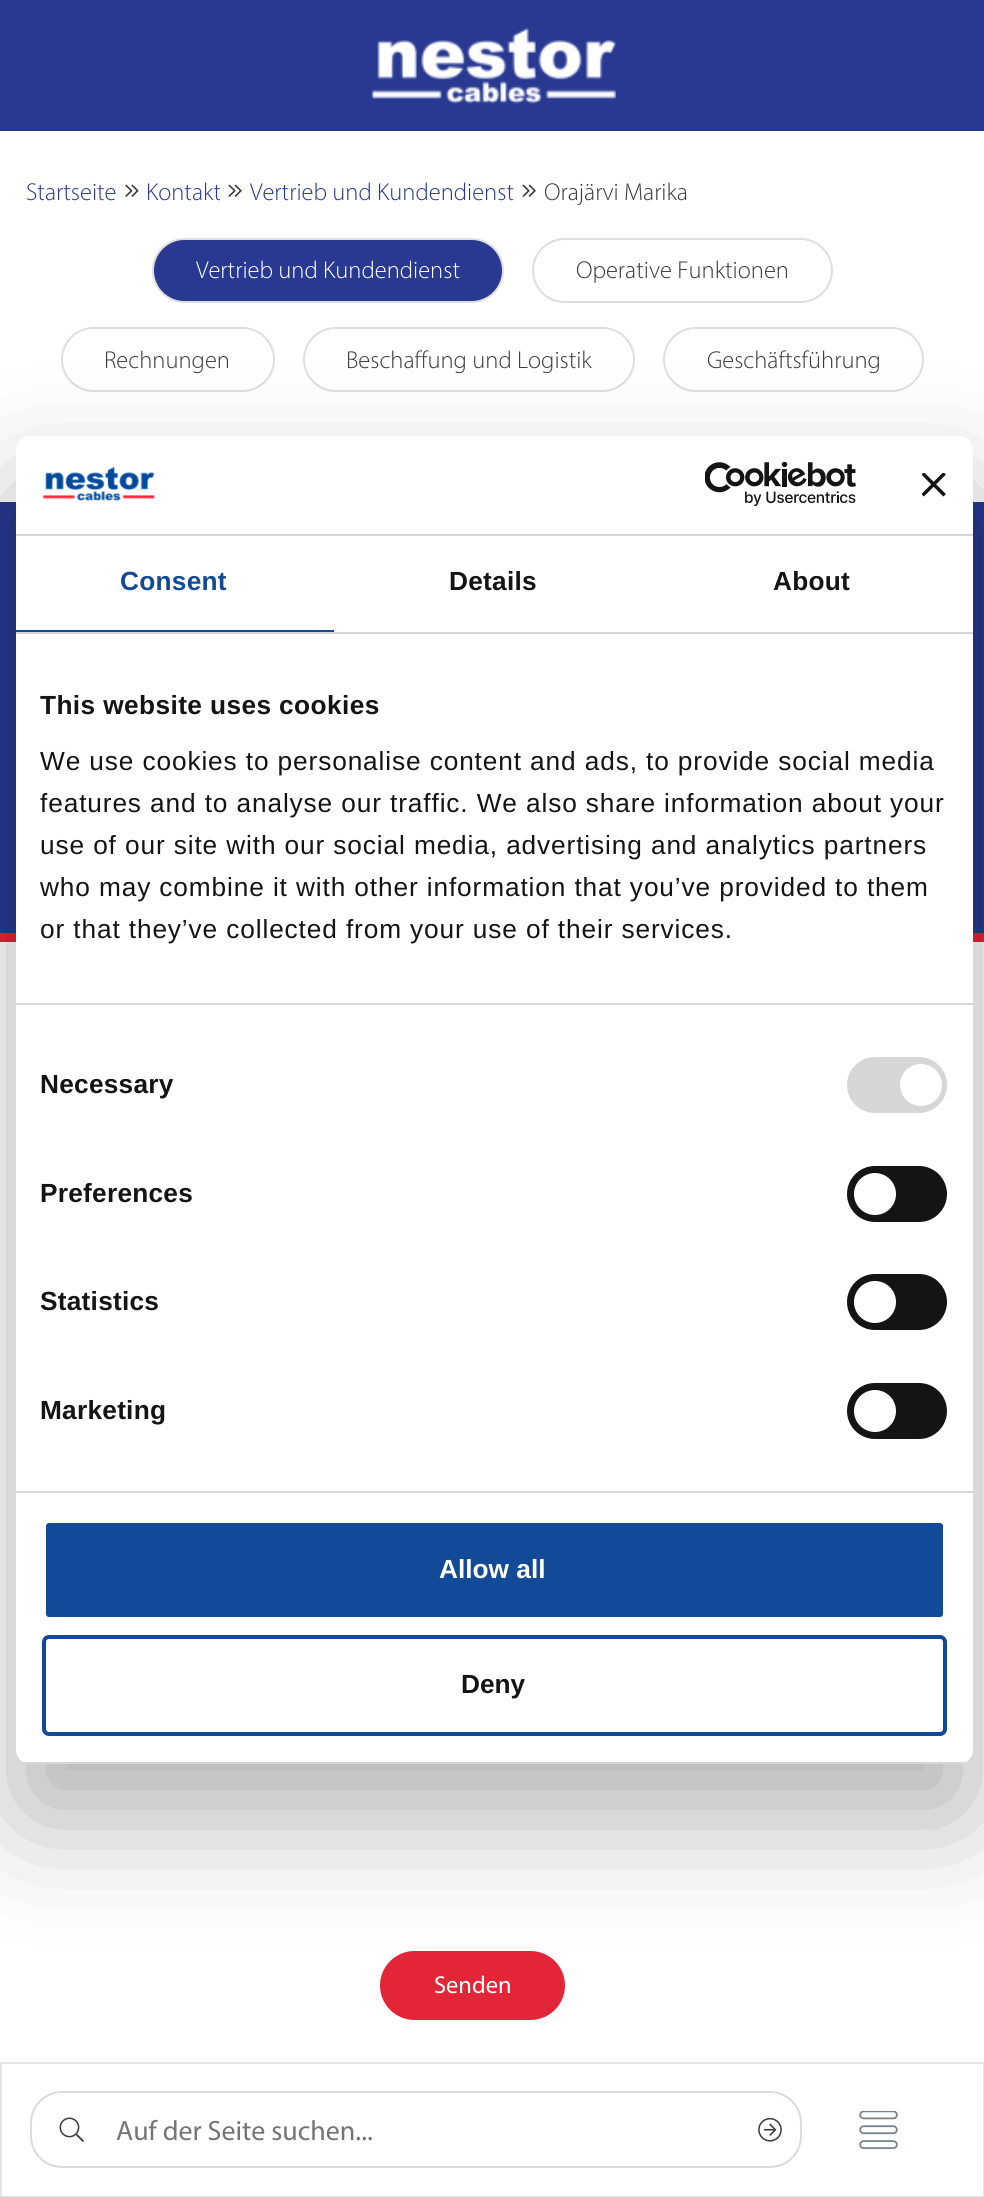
#include <cairo/cairo.h>
#include <math.h>
#include <stddef.h>

typedef struct { double x, y; const char *s; } line_t;
typedef struct { double x, y, w, h; unsigned color; } box_t;
static cairo_t *cr;

static void rgb(unsigned color)
{
	cairo_set_source_rgb(cr, (color >> 16) / 255.0, (color >> 8 & 255) / 255.0, (color & 255) / 255.0);
}

static void tracked(double x, double y, const char *s, double letter, double word)
{
	cairo_move_to(cr, x, y);
	while (*s) {
		char ch[5] = {0};
		int n = 0;
		do ch[n++] = *s++; while ((*s & 0xC0) == 0x80);
		cairo_show_text(cr, ch);
		cairo_rel_move_to(cr, letter + word * (*ch == ' '), 0);
	}
}

static void rrect(double x, double y, double w, double h, double r)
{
	cairo_new_sub_path(cr);
	cairo_arc(cr, x + w - r, y + h - r, r, 0, M_PI / 2);
	cairo_arc(cr, x + r, y + h - r, r, M_PI / 2, M_PI);
	cairo_arc(cr, x + r, y + r, r, M_PI, 1.5 * M_PI);
	cairo_arc(cr, x + w - r, y + r, r, 1.5 * M_PI, 2 * M_PI);
	cairo_close_path(cr);
}

static void soft_shadow(double x, double y, double w, double h, double r, double blur, double alpha)
{
	cairo_push_group_with_content(cr, CAIRO_CONTENT_ALPHA);
	cairo_set_operator(cr, CAIRO_OPERATOR_SOURCE);
	for (int i = 15; i >= -15 && fmin(w, h) + blur * i / 3 > 0; i -= 2) {
		double e = blur * i / 6;
		cairo_set_source_rgba(cr, 0, 0, 0, alpha * erfc((i - 1) / 8.5) / 2);
		rrect(x - e, y - e, w + 2 * e, h + 2 * e, fmax(0, fmin(r + e + blur * .6, fmin(w, h) / 2 + e)));
		cairo_fill(cr);
	}
	cairo_pattern_t *soft = cairo_pop_group(cr);
	cairo_mask(cr, soft);
	cairo_pattern_destroy(soft);
}

static void image(const char *path, double x, double y, double w, double h)
{
	cairo_surface_t *image = cairo_image_surface_create_from_png(path);
	cairo_save(cr);
	cairo_set_source_surface(cr, image, x, y);
	cairo_rectangle(cr, x, y, w, h);
	cairo_fill(cr);
	cairo_restore(cr);
	cairo_surface_destroy(image);
}

int main(void) {
	cairo_surface_t *surface = cairo_image_surface_create(CAIRO_FORMAT_RGB24, 984, 2197);
	cr = cairo_create(surface);
	cairo_font_options_t *options = cairo_font_options_create();
	cairo_font_options_set_hint_metrics(options, CAIRO_HINT_METRICS_OFF);
	cairo_font_options_set_hint_style(options, CAIRO_HINT_STYLE_NONE);
	cairo_set_font_options(cr, options);
	cairo_set_miter_limit(cr, 4);
	rgb(0xffffff);
	cairo_paint(cr);
	image("img/1.png", 125, 184, 14, 13);
	image("img/2.png", 228, 184, 14, 13);
	image("img/2.png", 522, 184, 14, 13);
	rgb(0x293991);
	rrect(153, 239, 350, 63, 31.5);
	cairo_fill_preserve(cr);
	rgb(0xdfdede);
	cairo_stroke(cr);
	rrect(533, 239, 299, 63, 31.5);
	cairo_stroke(cr);
	rrect(62, 328, 212, 63, 31.5);
	cairo_stroke(cr);
	rrect(304, 328, 330, 63, 31.5);
	cairo_stroke(cr);
	rrect(664, 328, 259, 63, 31.5);
	cairo_stroke(cr);
	rgb(0x293991);
	cairo_rectangle(cr, 0, 502, 984, 431);
	cairo_fill(cr);
	rgb(0xe22637);
	cairo_rectangle(cr, 0, 933, 984, 9);
	cairo_fill(cr);
	rgb(0xffffff);
	rrect(338, 627, 612, 1435, 14);
	cairo_fill(cr);
	rgb(0xe22637);
	rrect(380, 1951, 185, 69, 34.5);
	cairo_fill(cr);
	rgb(0x000000);
	soft_shadow(16, 492, 957, 1328, 14, 59.5, 0.3);
	rgb(0xffffff);
	rrect(16, 436, 957, 1328, 14);
	cairo_fill(cr);
	rgb(0xd6d6d6);
	cairo_rectangle(cr, 16, 534, 957, 2);
	cairo_fill(cr);
	image("img/3.png", 42, 466, 113, 35);
	image("img/4.png", 705, 462, 151, 44);
	image("img/5.png", 922, 473, 24, 24);
	{
		static const box_t items[] = {
			{16, 632, 957, 2, 0xd6d6d6},
			{16, 630, 318, 2, 0x134a97},
			{16, 1003, 957, 2, 0xd6d6d6},
			{16, 1491, 957, 2, 0xd6d6d6},
		};
		for (size_t i = 0; i < sizeof items / sizeof *items; i++) {
			rgb(items[i].color);
			cairo_rectangle(cr, items[i].x, items[i].y, items[i].w, items[i].h);
			cairo_fill(cr);
		}
	}
	rrect(847, 1057, 100, 56, 28);
	cairo_fill(cr);
	rgb(0xffffff);
	cairo_arc(cr, 921, 1085, 21, 0, 2 * M_PI);
	cairo_fill(cr);
	rgb(0x141414);
	rrect(847, 1166, 100, 56, 28);
	cairo_fill(cr);
	rgb(0xffffff);
	cairo_arc(cr, 875, 1194, 21, 0, 2 * M_PI);
	cairo_fill(cr);
	rgb(0x141414);
	rrect(847, 1274, 100, 56, 28);
	cairo_fill(cr);
	rgb(0xffffff);
	cairo_arc(cr, 875, 1302, 21, 0, 2 * M_PI);
	cairo_fill(cr);
	rgb(0x141414);
	rrect(847, 1383, 100, 56, 28);
	cairo_fill(cr);
	rgb(0xffffff);
	cairo_arc(cr, 875, 1411, 21, 0, 2 * M_PI);
	cairo_fill(cr);
	cairo_save(cr);
	rrect(16, 436, 957, 1328, 14);
	cairo_clip(cr);
	rgb(0xd6d6d6);
	cairo_rectangle(cr, 16, 1762, 957, 2);
	cairo_fill(cr);
	cairo_restore(cr);
	rgb(0x134a97);
	rrect(44, 1521, 901, 98, 5);
	cairo_fill_preserve(cr);
	rgb(0xffffff);
	cairo_set_line_width(cr, 4);
	cairo_stroke(cr);
	rrect(44, 1637, 901, 97, 5);
	rgb(0x134a97);
	cairo_stroke(cr);
	rgb(0x293991);
	cairo_rectangle(cr, 0, 0, 984, 131);
	cairo_fill(cr);
	image("img/6.png", 371, 28, 245, 76);
	cairo_rectangle(cr, 1, 2063, 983, 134);
	rgb(0xe4e4e4);
	cairo_set_line_width(cr, 2);
	cairo_stroke(cr);
	rrect(31, 2092, 770, 75, 31);
	rgb(0xdcdada);
	cairo_stroke(cr);
	image("img/7.png", 59, 2117, 25, 25);
	image("img/8.png", 758, 2117, 24, 25);
	image("img/9.png", 859, 2111, 39, 38);
	cairo_select_font_face(cr, "Myriad Light", CAIRO_FONT_SLANT_NORMAL, CAIRO_FONT_WEIGHT_NORMAL);
	cairo_set_font_size(cr, 24.5);
	rgb(0x293991);
	{
		static const line_t items[] = {
			{26, 200, "Startseite"},
			{146, 200, "Kontakt"},
			{250, 200, "Vertrieb und Kundendienst"},
		};
		for (size_t i = 0; i < sizeof items / sizeof *items; i++) {
			cairo_move_to(cr, items[i].x, items[i].y);
			cairo_show_text(cr, items[i].s);
		}
	}
	rgb(0x3b3b3b);
	cairo_move_to(cr, 544, 200);
	cairo_show_text(cr, "Orajärvi Marika");
	rgb(0xffffff);
	cairo_move_to(cr, 196, 278);
	cairo_show_text(cr, "Vertrieb und Kundendienst");
	rgb(0x3b3b3b);
	{
		static const line_t items[] = {
			{576, 278, "Operative Funktionen"},
			{104, 368, "Rechnungen"},
			{346, 368, "Beschaffung und Logistik"},
			{707, 368, "Geschäftsführung"},
		};
		for (size_t i = 0; i < sizeof items / sizeof *items; i++) {
			cairo_move_to(cr, items[i].x, items[i].y);
			cairo_show_text(cr, items[i].s);
		}
	}
	cairo_select_font_face(cr, "Liberation Sans", CAIRO_FONT_SLANT_NORMAL, CAIRO_FONT_WEIGHT_BOLD);
	cairo_set_font_size(cr, 26.25);
	rgb(0x134a97);
	tracked(120, 590, "Consent", 0.25, 0);
	rgb(0x141414);
	tracked(449, 590, "Details", 0.25, 0);
	tracked(773, 590, "About", 0.25, 0);
	tracked(40, 714, "This website uses cookies", 0.4, 0);
	cairo_select_font_face(cr, "Liberation Sans", CAIRO_FONT_SLANT_NORMAL, CAIRO_FONT_WEIGHT_NORMAL);
	{
		static const line_t items[] = {
			{40, 770, "We use cookies to personalise content and ads, to provide social media"},
			{40, 812, "features and to analyse our traffic. We also share information about your"},
			{40, 854, "use of our site with our social media, advertising and analytics partners"},
			{40, 896, "who may combine it with other information that you’ve provided to them"},
			{40, 938, "or that they’ve collected from your use of their services."},
		};
		for (size_t i = 0; i < sizeof items / sizeof *items; i++) {
			tracked(items[i].x, items[i].y, items[i].s, 0.88, 0);
		}
	}
	cairo_select_font_face(cr, "Liberation Sans", CAIRO_FONT_SLANT_NORMAL, CAIRO_FONT_WEIGHT_BOLD);
	{
		static const line_t items[] = {
			{40, 1093, "Necessary"},
			{40, 1202, "Preferences"},
			{40, 1310, "Statistics"},
			{40, 1419, "Marketing"},
		};
		for (size_t i = 0; i < sizeof items / sizeof *items; i++) {
			tracked(items[i].x, items[i].y, items[i].s, 0.25, 0);
		}
	}
	rgb(0xffffff);
	cairo_move_to(cr, 439, 1578);
	cairo_show_text(cr, "Allow all");
	rgb(0x141414);
	cairo_move_to(cr, 461, 1693);
	cairo_show_text(cr, "Deny");
	cairo_select_font_face(cr, "Myriad", CAIRO_FONT_SLANT_NORMAL, CAIRO_FONT_WEIGHT_NORMAL);
	cairo_set_font_size(cr, 24.5);
	rgb(0xffffff);
	cairo_move_to(cr, 434, 1993);
	cairo_show_text(cr, "Senden");
	cairo_set_font_size(cr, 28);
	rgb(0x757575);
	cairo_move_to(cr, 116, 2140);
	cairo_show_text(cr, "Auf der Seite suchen...");
	cairo_surface_write_to_png(surface, "page.png");
	cairo_font_options_destroy(options);
	cairo_destroy(cr);
	cairo_surface_destroy(surface);
	return 0;
}
